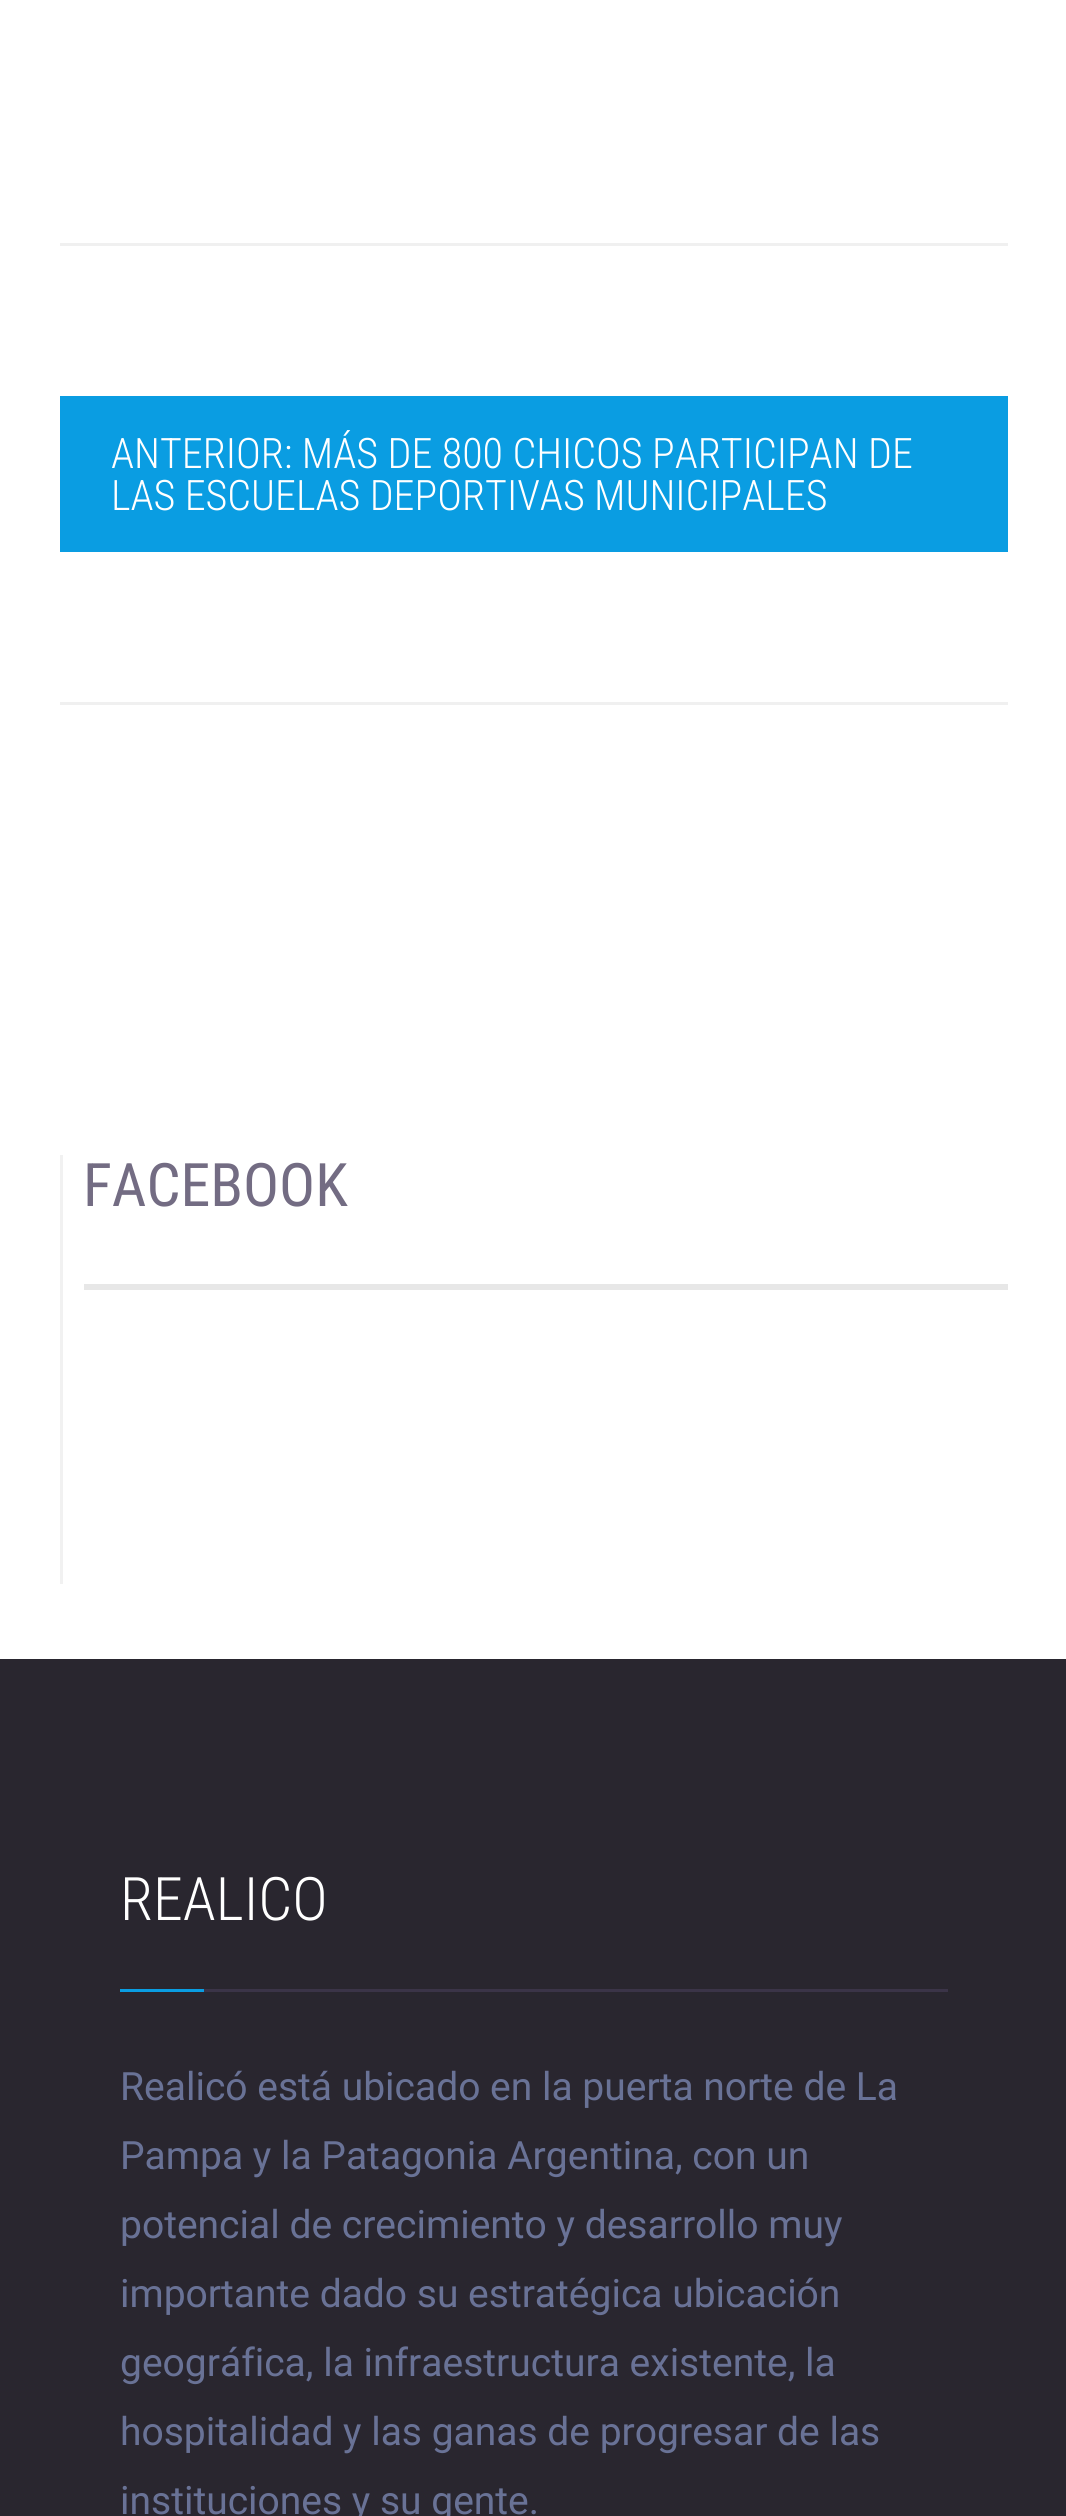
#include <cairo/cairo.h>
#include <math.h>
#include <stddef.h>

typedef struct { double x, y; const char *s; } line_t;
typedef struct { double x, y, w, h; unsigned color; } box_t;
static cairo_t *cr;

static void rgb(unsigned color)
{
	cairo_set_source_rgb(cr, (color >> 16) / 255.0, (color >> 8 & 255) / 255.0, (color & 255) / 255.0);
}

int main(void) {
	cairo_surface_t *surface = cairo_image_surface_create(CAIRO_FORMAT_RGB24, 1066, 2516);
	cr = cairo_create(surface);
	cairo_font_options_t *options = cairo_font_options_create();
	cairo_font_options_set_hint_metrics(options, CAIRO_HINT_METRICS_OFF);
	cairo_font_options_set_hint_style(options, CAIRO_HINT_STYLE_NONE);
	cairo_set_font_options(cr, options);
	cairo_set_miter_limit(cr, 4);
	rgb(0xffffff);
	cairo_paint(cr);
	{
		static const box_t items[] = {
			{60, 243, 948, 3, 0xf0f0f0},
			{60, 702, 948, 3, 0xf0f0f0},
			{60, 396, 948, 156, 0x0a9de2},
			{60, 1155, 3, 429, 0xf1f1f1},
			{84, 1284, 924, 6, 0xe7e7e7},
			{0, 1659, 1066, 857, 0x29262f},
			{204, 1989, 744, 3, 0x3b3448},
			{120, 1989, 84, 3, 0x0a9de2},
		};
		for (size_t i = 0; i < sizeof items / sizeof *items; i++) {
			rgb(items[i].color);
			cairo_rectangle(cr, items[i].x, items[i].y, items[i].w, items[i].h);
			cairo_fill(cr);
		}
	}
	cairo_select_font_face(cr, "Roboto Condensed Light", CAIRO_FONT_SLANT_NORMAL, CAIRO_FONT_WEIGHT_NORMAL);
	cairo_set_font_size(cr, 42);
	rgb(0xffffff);
	cairo_move_to(cr, 111, 468);
	cairo_show_text(cr, "ANTERIOR: MÁS DE 800 CHICOS PARTICIPAN DE");
	cairo_move_to(cr, 111, 510);
	cairo_show_text(cr, "LAS ESCUELAS DEPORTIVAS MUNICIPALES");
	cairo_select_font_face(cr, "Roboto Condensed", CAIRO_FONT_SLANT_NORMAL, CAIRO_FONT_WEIGHT_NORMAL);
	cairo_set_font_size(cr, 60);
	rgb(0x736c83);
	cairo_move_to(cr, 83, 1206);
	cairo_show_text(cr, "FACEBOOK");
	cairo_select_font_face(cr, "Roboto Condensed Light", CAIRO_FONT_SLANT_NORMAL, CAIRO_FONT_WEIGHT_NORMAL);
	rgb(0xffffff);
	cairo_move_to(cr, 120, 1920);
	cairo_show_text(cr, "REALICO");
	cairo_select_font_face(cr, "Roboto", CAIRO_FONT_SLANT_NORMAL, CAIRO_FONT_WEIGHT_NORMAL);
	cairo_set_font_size(cr, 39);
	rgb(0x697296);
	{
		static const line_t items[] = {
			{120, 2100, "Realicó está ubicado en la puerta norte de La"},
			{120, 2169, "Pampa y la Patagonia Argentina, con un"},
			{120, 2238, "potencial de crecimiento y desarrollo muy"},
			{120, 2307, "importante dado su estratégica ubicación"},
			{120, 2376, "geográfica, la infraestructura existente, la"},
			{120, 2445, "hospitalidad y las ganas de progresar de las"},
			{120, 2514, "instituciones y su gente."},
		};
		for (size_t i = 0; i < sizeof items / sizeof *items; i++) {
			cairo_move_to(cr, items[i].x, items[i].y);
			cairo_show_text(cr, items[i].s);
		}
	}
	cairo_surface_write_to_png(surface, "page.png");
	cairo_font_options_destroy(options);
	cairo_destroy(cr);
	cairo_surface_destroy(surface);
	return 0;
}
